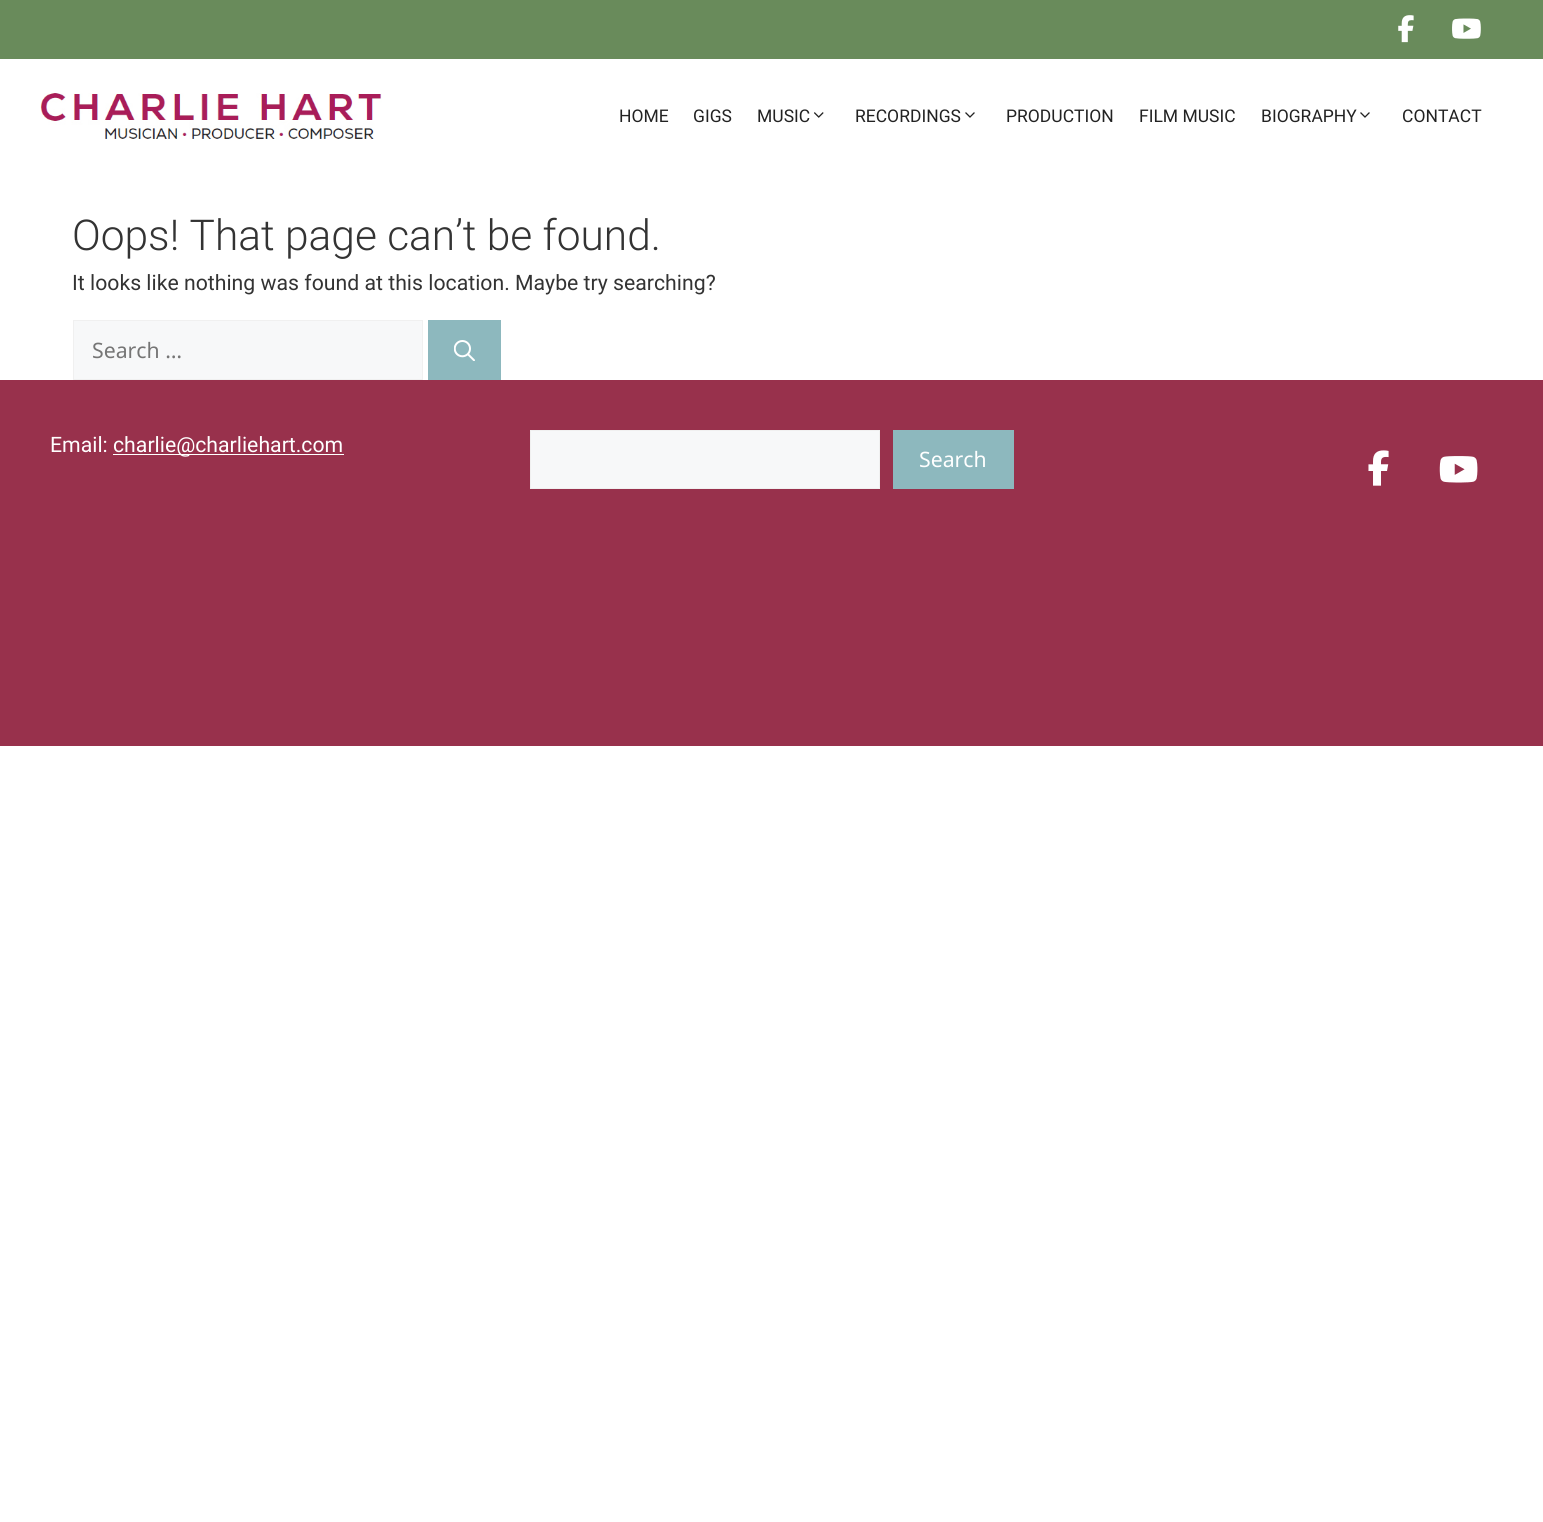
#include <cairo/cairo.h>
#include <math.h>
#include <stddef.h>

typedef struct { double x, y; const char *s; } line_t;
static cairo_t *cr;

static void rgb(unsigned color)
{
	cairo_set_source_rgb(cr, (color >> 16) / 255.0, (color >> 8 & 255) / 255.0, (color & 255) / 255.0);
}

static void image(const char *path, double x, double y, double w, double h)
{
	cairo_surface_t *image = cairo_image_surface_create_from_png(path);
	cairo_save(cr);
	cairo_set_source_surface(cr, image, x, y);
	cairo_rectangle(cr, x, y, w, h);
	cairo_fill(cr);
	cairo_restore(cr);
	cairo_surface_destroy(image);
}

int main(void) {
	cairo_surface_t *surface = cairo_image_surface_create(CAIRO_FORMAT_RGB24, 1543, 1522);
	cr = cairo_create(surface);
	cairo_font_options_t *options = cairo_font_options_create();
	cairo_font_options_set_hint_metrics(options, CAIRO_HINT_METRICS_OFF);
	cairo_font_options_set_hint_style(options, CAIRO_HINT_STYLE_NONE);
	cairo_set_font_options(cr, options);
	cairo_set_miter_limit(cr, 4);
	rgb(0xffffff);
	cairo_paint(cr);
	rgb(0x698b5b);
	cairo_rectangle(cr, 0, 0, 1543, 59);
	cairo_fill(cr);
	image("img/1.png", 1398, 15, 16, 28);
	image("img/2.png", 1452, 18, 29, 21);
	image("img/3.png", 40, 93, 342, 46);
	image("img/4.png", 814, 112, 10, 6);
	image("img/5.png", 965, 112, 10, 6);
	image("img/5.png", 1360, 112, 10, 6);
	rgb(0xf7f8f9);
	cairo_rectangle(cr, 73.5, 320.5, 349, 59);
	cairo_fill_preserve(cr);
	rgb(0xf0f0f0);
	cairo_set_line_width(cr, 1);
	cairo_stroke(cr);
	rgb(0x8db8be);
	cairo_rectangle(cr, 428, 320, 73, 60);
	cairo_fill(cr);
	image("img/6.png", 454, 340, 21, 21);
	rgb(0x98314c);
	cairo_rectangle(cr, 0, 380, 1543, 366);
	cairo_fill(cr);
	rgb(0xffffff);
	cairo_rectangle(cr, 113, 454, 231, 1);
	cairo_fill(cr);
	rgb(0xf7f8f9);
	cairo_rectangle(cr, 530.5, 430.5, 349, 58);
	cairo_fill_preserve(cr);
	rgb(0xf0f0f0);
	cairo_stroke(cr);
	rgb(0x8db8be);
	cairo_rectangle(cr, 893, 430, 121, 59);
	cairo_fill(cr);
	image("img/7.png", 1368, 450, 21, 36);
	image("img/8.png", 1439, 456, 39, 27);
	cairo_select_font_face(cr, "Roboto", CAIRO_FONT_SLANT_NORMAL, CAIRO_FONT_WEIGHT_NORMAL);
	cairo_set_font_size(cr, 17.5);
	rgb(0x222222);
	{
		static const line_t items[] = {
			{619, 122, "HOME"},
			{693, 122, "GIGS"},
			{757, 122, "MUSIC"},
			{855, 122, "RECORDINGS"},
			{1006, 122, "PRODUCTION"},
			{1139, 122, "FILM MUSIC"},
			{1261, 122, "BIOGRAPHY"},
			{1402, 122, "CONTACT"},
		};
		for (size_t i = 0; i < sizeof items / sizeof *items; i++) {
			cairo_move_to(cr, items[i].x, items[i].y);
			cairo_show_text(cr, items[i].s);
		}
	}
	cairo_select_font_face(cr, "Roboto Light", CAIRO_FONT_SLANT_NORMAL, CAIRO_FONT_WEIGHT_NORMAL);
	cairo_set_font_size(cr, 42.5);
	rgb(0x333333);
	cairo_move_to(cr, 72, 250);
	cairo_show_text(cr, "Oops! That page can’t be found.");
	cairo_select_font_face(cr, "Roboto", CAIRO_FONT_SLANT_NORMAL, CAIRO_FONT_WEIGHT_NORMAL);
	cairo_set_font_size(cr, 21.25);
	cairo_move_to(cr, 72, 290);
	cairo_show_text(cr, "It looks like nothing was found at this location. Maybe try searching?");
	cairo_select_font_face(cr, "Noto Sans", CAIRO_FONT_SLANT_NORMAL, CAIRO_FONT_WEIGHT_NORMAL);
	rgb(0x757575);
	cairo_move_to(cr, 92, 358);
	cairo_show_text(cr, "Search …");
	cairo_select_font_face(cr, "Roboto", CAIRO_FONT_SLANT_NORMAL, CAIRO_FONT_WEIGHT_NORMAL);
	rgb(0xffffff);
	cairo_move_to(cr, 50, 452);
	cairo_show_text(cr, "Email:");
	cairo_move_to(cr, 113, 452);
	cairo_show_text(cr, "charlie@charliehart.com");
	cairo_select_font_face(cr, "Noto Sans", CAIRO_FONT_SLANT_NORMAL, CAIRO_FONT_WEIGHT_NORMAL);
	cairo_move_to(cr, 919, 467);
	cairo_show_text(cr, "Search");
	cairo_surface_write_to_png(surface, "page.png");
	cairo_font_options_destroy(options);
	cairo_destroy(cr);
	cairo_surface_destroy(surface);
	return 0;
}
